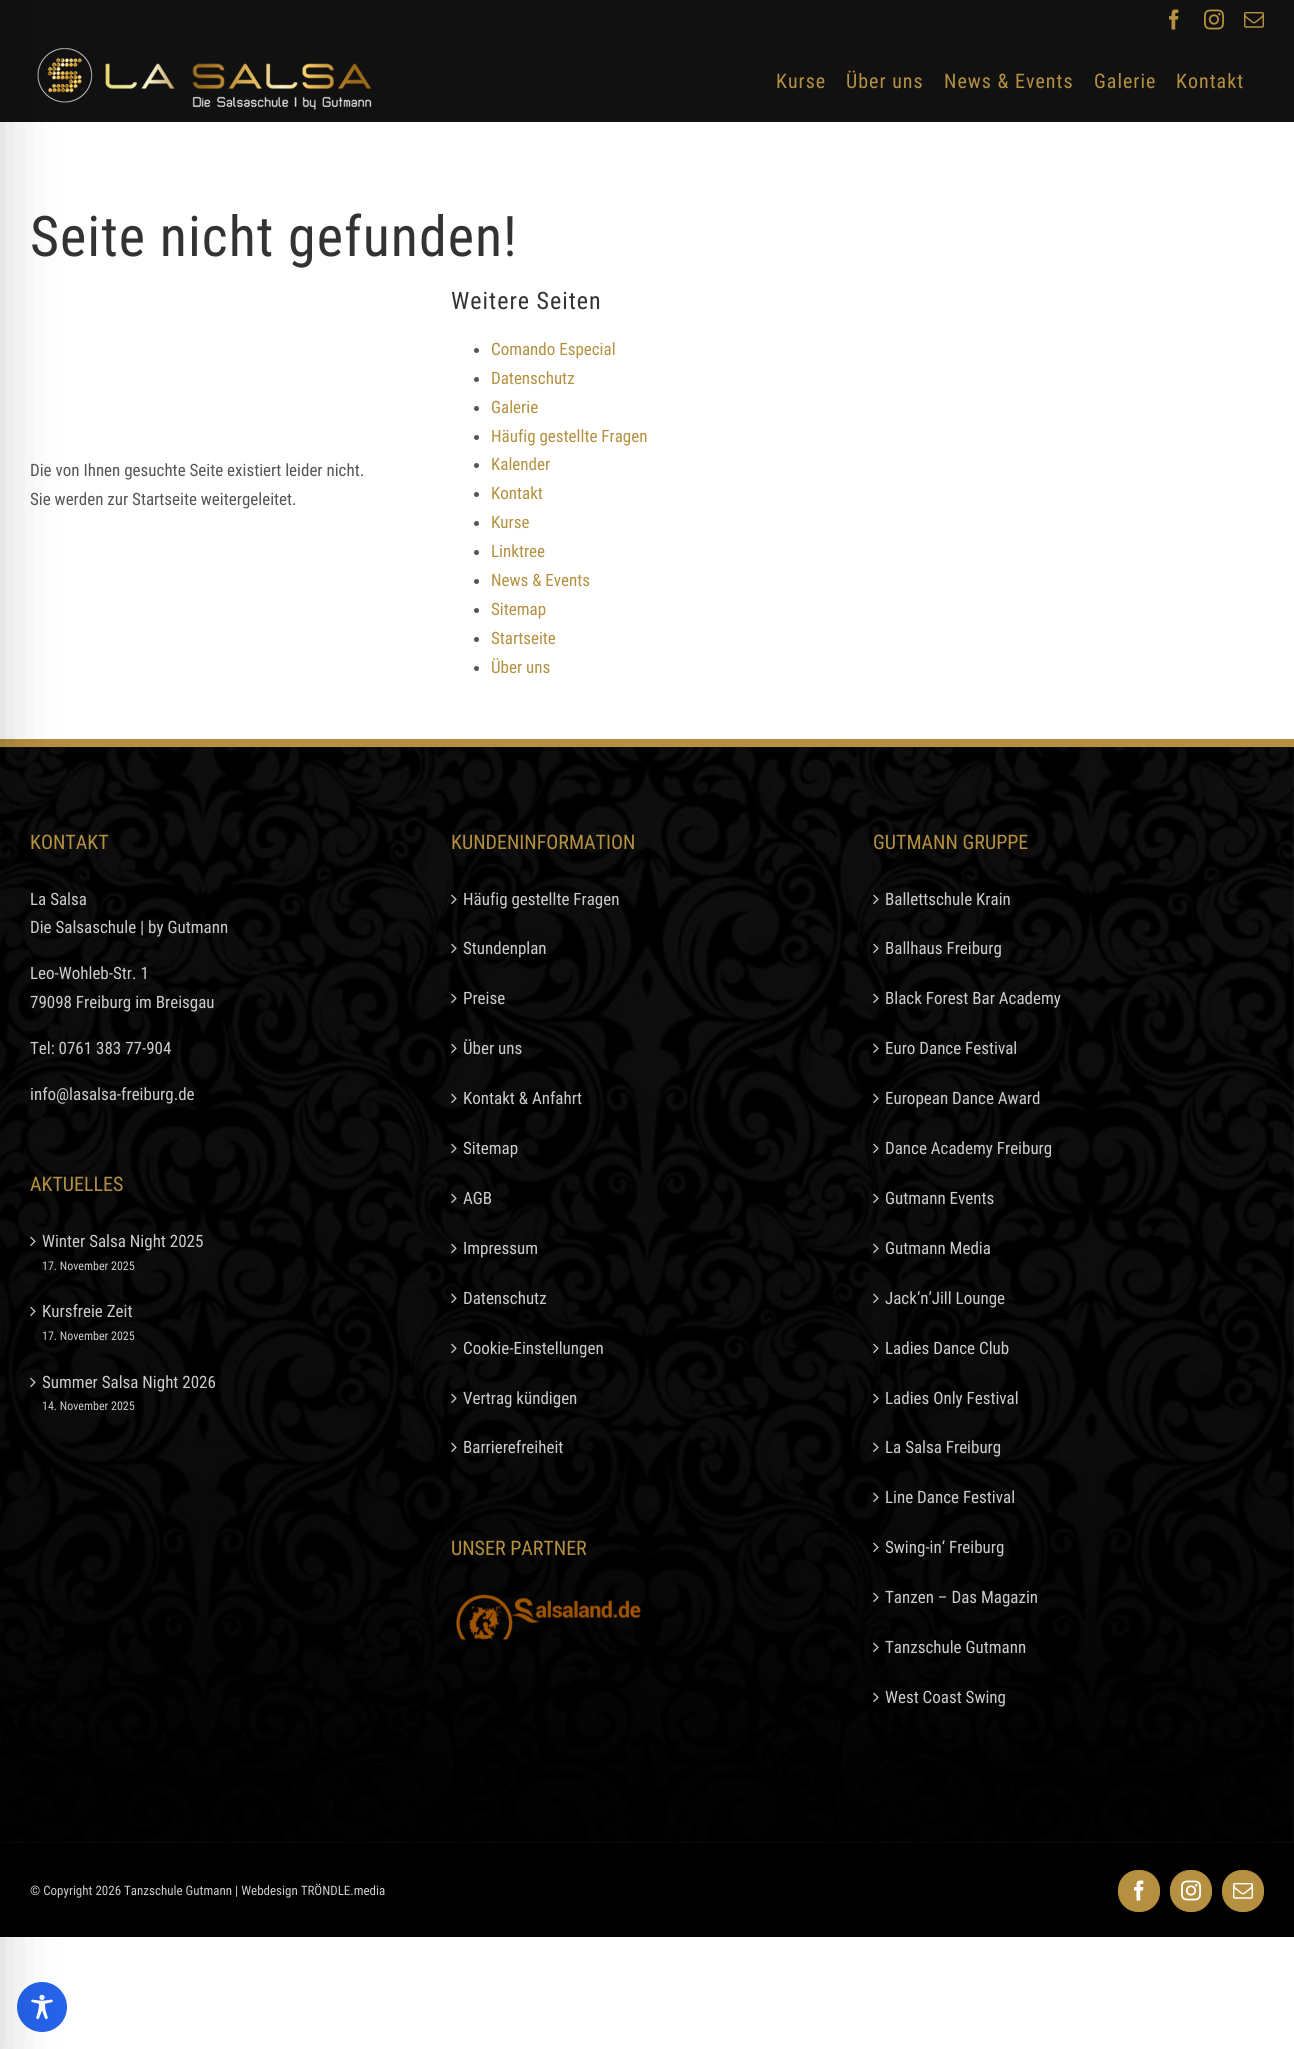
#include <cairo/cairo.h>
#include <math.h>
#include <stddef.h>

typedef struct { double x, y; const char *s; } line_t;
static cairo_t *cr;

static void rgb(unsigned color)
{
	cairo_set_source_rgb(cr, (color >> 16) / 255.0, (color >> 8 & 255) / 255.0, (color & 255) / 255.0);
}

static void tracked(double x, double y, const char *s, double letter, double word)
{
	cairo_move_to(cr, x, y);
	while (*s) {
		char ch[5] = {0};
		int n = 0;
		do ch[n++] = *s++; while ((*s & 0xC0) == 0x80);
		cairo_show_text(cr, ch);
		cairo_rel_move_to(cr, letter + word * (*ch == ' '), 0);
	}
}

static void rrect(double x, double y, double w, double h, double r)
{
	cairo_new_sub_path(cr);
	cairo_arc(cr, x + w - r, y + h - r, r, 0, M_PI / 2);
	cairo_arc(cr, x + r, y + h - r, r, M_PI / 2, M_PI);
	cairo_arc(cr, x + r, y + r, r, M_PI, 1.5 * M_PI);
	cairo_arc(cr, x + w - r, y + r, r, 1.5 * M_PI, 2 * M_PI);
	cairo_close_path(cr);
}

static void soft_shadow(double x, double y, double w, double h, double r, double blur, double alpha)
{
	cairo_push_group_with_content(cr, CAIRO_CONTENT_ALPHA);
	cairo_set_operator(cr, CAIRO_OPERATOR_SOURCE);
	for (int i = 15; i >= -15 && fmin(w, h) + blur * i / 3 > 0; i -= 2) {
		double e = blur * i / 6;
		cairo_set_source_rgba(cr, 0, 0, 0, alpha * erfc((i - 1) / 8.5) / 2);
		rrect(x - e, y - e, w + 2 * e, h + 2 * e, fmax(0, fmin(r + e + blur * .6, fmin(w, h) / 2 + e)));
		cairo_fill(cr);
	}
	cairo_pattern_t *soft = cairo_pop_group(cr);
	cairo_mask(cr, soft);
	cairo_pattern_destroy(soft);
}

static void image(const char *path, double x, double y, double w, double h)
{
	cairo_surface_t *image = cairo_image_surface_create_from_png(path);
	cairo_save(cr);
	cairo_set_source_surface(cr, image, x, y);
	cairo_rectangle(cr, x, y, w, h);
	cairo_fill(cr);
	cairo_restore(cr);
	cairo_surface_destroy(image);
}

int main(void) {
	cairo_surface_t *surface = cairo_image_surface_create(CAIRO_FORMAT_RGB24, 1294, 2049);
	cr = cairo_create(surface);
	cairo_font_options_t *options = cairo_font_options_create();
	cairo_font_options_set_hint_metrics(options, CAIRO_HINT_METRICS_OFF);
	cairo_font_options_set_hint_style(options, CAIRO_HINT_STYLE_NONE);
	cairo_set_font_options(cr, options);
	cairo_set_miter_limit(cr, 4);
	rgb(0xffffff);
	cairo_paint(cr);
	rgb(0x2563eb);
	cairo_arc(cr, 42, 2007, 25, 0, 2 * M_PI);
	cairo_fill(cr);
	image("img/1.png", 31, 1994, 22, 26);
	rgb(0x111111);
	cairo_rectangle(cr, 0, 0, 1294, 122);
	cairo_fill(cr);
	image("img/5.png", 37, 48, 335, 62);
	rgb(0x222222);
	cairo_rectangle(cr, 0, 747, 1294, 1096);
	cairo_fill(cr);
	image("img/6.png", 0, 747, 1294, 1096);
	rgb(0xb49040);
	cairo_rectangle(cr, 0, 739, 1294, 8);
	cairo_fill(cr);
	image("img/7.png", 30, 1236, 6, 11);
	image("img/8.png", 30, 1306, 6, 11);
	image("img/9.png", 30, 1377, 6, 11);
	rgb(0x000000);
	cairo_rectangle(cr, 0, 1843, 1294, 94);
	cairo_fill(cr);
	rgb(0x000000);
	soft_shadow(-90, 10, 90, 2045, 0, 30, 0.2);
	image("img/2.png", 1169, 9, 10, 21);
	image("img/3.png", 1204, 9, 20, 21);
	image("img/4.png", 1244, 12, 20, 16);
	rgb(0x555555);
	cairo_arc(cr, 476.5, 350.5, 2.5, 0, 2 * M_PI);
	cairo_fill(cr);
	cairo_arc(cr, 476.5, 379.5, 2.5, 0, 2 * M_PI);
	cairo_fill(cr);
	cairo_arc(cr, 476.5, 408.5, 2.5, 0, 2 * M_PI);
	cairo_fill(cr);
	cairo_arc(cr, 476.5, 437.5, 2.5, 0, 2 * M_PI);
	cairo_fill(cr);
	cairo_arc(cr, 476.5, 465.5, 2.5, 0, 2 * M_PI);
	cairo_fill(cr);
	cairo_arc(cr, 476.5, 494.5, 2.5, 0, 2 * M_PI);
	cairo_fill(cr);
	cairo_arc(cr, 476.5, 523.5, 2.5, 0, 2 * M_PI);
	cairo_fill(cr);
	cairo_arc(cr, 476.5, 552.5, 2.5, 0, 2 * M_PI);
	cairo_fill(cr);
	cairo_arc(cr, 476.5, 581.5, 2.5, 0, 2 * M_PI);
	cairo_fill(cr);
	cairo_arc(cr, 476.5, 610.5, 2.5, 0, 2 * M_PI);
	cairo_fill(cr);
	cairo_arc(cr, 476.5, 639.5, 2.5, 0, 2 * M_PI);
	cairo_fill(cr);
	cairo_arc(cr, 476.5, 668.5, 2.5, 0, 2 * M_PI);
	cairo_fill(cr);
	image("img/10.png", 451, 894, 6, 11);
	image("img/11.png", 451, 943, 6, 11);
	image("img/12.png", 451, 993, 6, 11);
	image("img/13.png", 451, 1043, 6, 11);
	image("img/14.png", 451, 1093, 6, 11);
	image("img/15.png", 451, 1143, 6, 11);
	image("img/16.png", 451, 1193, 6, 11);
	image("img/17.png", 451, 1243, 6, 11);
	image("img/18.png", 451, 1293, 6, 11);
	image("img/19.png", 451, 1343, 6, 11);
	image("img/20.png", 451, 1393, 6, 11);
	image("img/21.png", 451, 1442, 6, 11);
	image("img/22.png", 456, 1594, 185, 47);
	image("img/23.png", 873, 894, 6, 11);
	image("img/24.png", 873, 943, 6, 11);
	image("img/25.png", 873, 993, 6, 11);
	image("img/26.png", 873, 1043, 6, 11);
	image("img/27.png", 873, 1093, 6, 11);
	image("img/28.png", 873, 1143, 6, 11);
	image("img/29.png", 873, 1193, 6, 11);
	image("img/30.png", 873, 1243, 6, 11);
	image("img/31.png", 873, 1293, 6, 11);
	image("img/32.png", 873, 1343, 6, 11);
	image("img/33.png", 873, 1393, 6, 11);
	image("img/34.png", 873, 1442, 6, 11);
	image("img/35.png", 873, 1492, 6, 11);
	image("img/36.png", 873, 1542, 6, 11);
	image("img/37.png", 873, 1592, 6, 11);
	image("img/38.png", 873, 1642, 6, 11);
	image("img/39.png", 873, 1692, 6, 11);
	rgb(0xb49040);
	rrect(1118.5, 1870.5, 41, 41, 19.5);
	cairo_fill_preserve(cr);
	cairo_set_line_width(cr, 1);
	cairo_stroke(cr);
	image("img/40.png", 1134, 1880, 10, 21);
	rrect(1170.5, 1870.5, 41, 41, 19.5);
	cairo_fill_preserve(cr);
	cairo_stroke(cr);
	image("img/41.png", 1181, 1880, 20, 21);
	rrect(1222.5, 1870.5, 41, 41, 19.5);
	cairo_fill_preserve(cr);
	cairo_stroke(cr);
	image("img/42.png", 1233, 1883, 20, 16);
	cairo_select_font_face(cr, "Roboto Condensed", CAIRO_FONT_SLANT_NORMAL, CAIRO_FONT_WEIGHT_NORMAL);
	cairo_set_font_size(cr, 20);
	{
		static const line_t items[] = {
			{776, 88, "Kurse"},
			{846, 88, "Über uns"},
			{944, 88, "News & Events"},
			{1094, 88, "Galerie"},
			{1176, 88, "Kontakt"},
		};
		for (size_t i = 0; i < sizeof items / sizeof *items; i++) {
			tracked(items[i].x, items[i].y, items[i].s, 1, 0);
		}
	}
	cairo_set_font_size(cr, 56);
	rgb(0x333333);
	tracked(30, 256, "Seite nicht gefunden!", 1, 0);
	cairo_set_font_size(cr, 17);
	rgb(0x555555);
	cairo_move_to(cr, 30, 476);
	cairo_show_text(cr, "Die von Ihnen gesuchte Seite existiert leider nicht.");
	cairo_move_to(cr, 30, 505);
	cairo_show_text(cr, "Sie werden zur Startseite weitergeleitet.");
	cairo_set_font_size(cr, 24);
	rgb(0x333333);
	tracked(451, 309, "Weitere Seiten", 1, 0);
	cairo_set_font_size(cr, 17);
	rgb(0xb49040);
	{
		static const line_t items[] = {
			{491, 355, "Comando Especial"},
			{491, 384, "Datenschutz"},
			{491, 413, "Galerie"},
			{491, 442, "Häufig gestellte Fragen"},
			{491, 470, "Kalender"},
			{491, 499, "Kontakt"},
			{491, 528, "Kurse"},
			{491, 557, "Linktree"},
			{491, 586, "News & Events"},
			{491, 615, "Sitemap"},
			{491, 644, "Startseite"},
			{491, 673, "Über uns"},
		};
		for (size_t i = 0; i < sizeof items / sizeof *items; i++) {
			cairo_move_to(cr, items[i].x, items[i].y);
			cairo_show_text(cr, items[i].s);
		}
	}
	cairo_set_font_size(cr, 20);
	cairo_move_to(cr, 30, 849);
	cairo_show_text(cr, "KONTAKT");
	cairo_set_font_size(cr, 17);
	rgb(0xcccccc);
	{
		static const line_t items[] = {
			{30, 905, "La Salsa"},
			{30, 933, "Die Salsaschule | by Gutmann"},
			{30, 979, "Leo-Wohleb-Str. 1"},
			{30, 1008, "79098 Freiburg im Breisgau"},
			{30, 1054, "Tel: 0761 383 77-904"},
			{30, 1100, "info@lasalsa-freiburg.de"},
		};
		for (size_t i = 0; i < sizeof items / sizeof *items; i++) {
			cairo_move_to(cr, items[i].x, items[i].y);
			cairo_show_text(cr, items[i].s);
		}
	}
	cairo_set_font_size(cr, 20);
	rgb(0xb49040);
	cairo_move_to(cr, 30, 1191);
	cairo_show_text(cr, "AKTUELLES");
	cairo_set_font_size(cr, 17);
	rgb(0xcccccc);
	cairo_move_to(cr, 42, 1247);
	cairo_show_text(cr, "Winter Salsa Night 2025");
	cairo_set_font_size(cr, 12);
	cairo_move_to(cr, 42, 1270);
	cairo_show_text(cr, "17. November 2025");
	cairo_set_font_size(cr, 17);
	cairo_move_to(cr, 42, 1317);
	cairo_show_text(cr, "Kursfreie Zeit");
	cairo_set_font_size(cr, 12);
	cairo_move_to(cr, 42, 1340);
	cairo_show_text(cr, "17. November 2025");
	cairo_set_font_size(cr, 17);
	cairo_move_to(cr, 42, 1388);
	cairo_show_text(cr, "Summer Salsa Night 2026");
	cairo_set_font_size(cr, 12);
	cairo_move_to(cr, 42, 1410);
	cairo_show_text(cr, "14. November 2025");
	cairo_set_font_size(cr, 20);
	rgb(0xb49040);
	cairo_move_to(cr, 451, 849);
	cairo_show_text(cr, "KUNDENINFORMATION");
	cairo_set_font_size(cr, 17);
	rgb(0xcccccc);
	{
		static const line_t items[] = {
			{463, 905, "Häufig gestellte Fragen"},
			{463, 954, "Stundenplan"},
			{463, 1004, "Preise"},
			{463, 1054, "Über uns"},
			{463, 1104, "Kontakt & Anfahrt"},
			{463, 1154, "Sitemap"},
			{463, 1204, "AGB"},
			{463, 1254, "Impressum"},
			{463, 1304, "Datenschutz"},
			{463, 1354, "Cookie-Einstellungen"},
			{463, 1404, "Vertrag kündigen"},
			{463, 1453, "Barrierefreiheit"},
		};
		for (size_t i = 0; i < sizeof items / sizeof *items; i++) {
			cairo_move_to(cr, items[i].x, items[i].y);
			cairo_show_text(cr, items[i].s);
		}
	}
	cairo_set_font_size(cr, 20);
	rgb(0xb49040);
	cairo_move_to(cr, 451, 1555);
	cairo_show_text(cr, "UNSER PARTNER");
	cairo_move_to(cr, 873, 849);
	cairo_show_text(cr, "GUTMANN GRUPPE");
	cairo_set_font_size(cr, 17);
	rgb(0xcccccc);
	{
		static const line_t items[] = {
			{885, 905, "Ballettschule Krain"},
			{885, 954, "Ballhaus Freiburg"},
			{885, 1004, "Black Forest Bar Academy"},
			{885, 1054, "Euro Dance Festival"},
			{885, 1104, "European Dance Award"},
			{885, 1154, "Dance Academy Freiburg"},
			{885, 1204, "Gutmann Events"},
			{885, 1254, "Gutmann Media"},
			{885, 1304, "Jack’n’Jill Lounge"},
			{885, 1354, "Ladies Dance Club"},
			{885, 1404, "Ladies Only Festival"},
			{885, 1453, "La Salsa Freiburg"},
			{885, 1503, "Line Dance Festival"},
			{885, 1553, "Swing-in‘ Freiburg"},
			{885, 1603, "Tanzen – Das Magazin"},
			{885, 1653, "Tanzschule Gutmann"},
			{885, 1703, "West Coast Swing"},
		};
		for (size_t i = 0; i < sizeof items / sizeof *items; i++) {
			cairo_move_to(cr, items[i].x, items[i].y);
			cairo_show_text(cr, items[i].s);
		}
	}
	cairo_set_font_size(cr, 13);
	cairo_move_to(cr, 30, 1895);
	cairo_show_text(cr, "© Copyright 2026 Tanzschule Gutmann | Webdesign TRÖNDLE.media");
	cairo_surface_write_to_png(surface, "page.png");
	cairo_font_options_destroy(options);
	cairo_destroy(cr);
	cairo_surface_destroy(surface);
	return 0;
}
